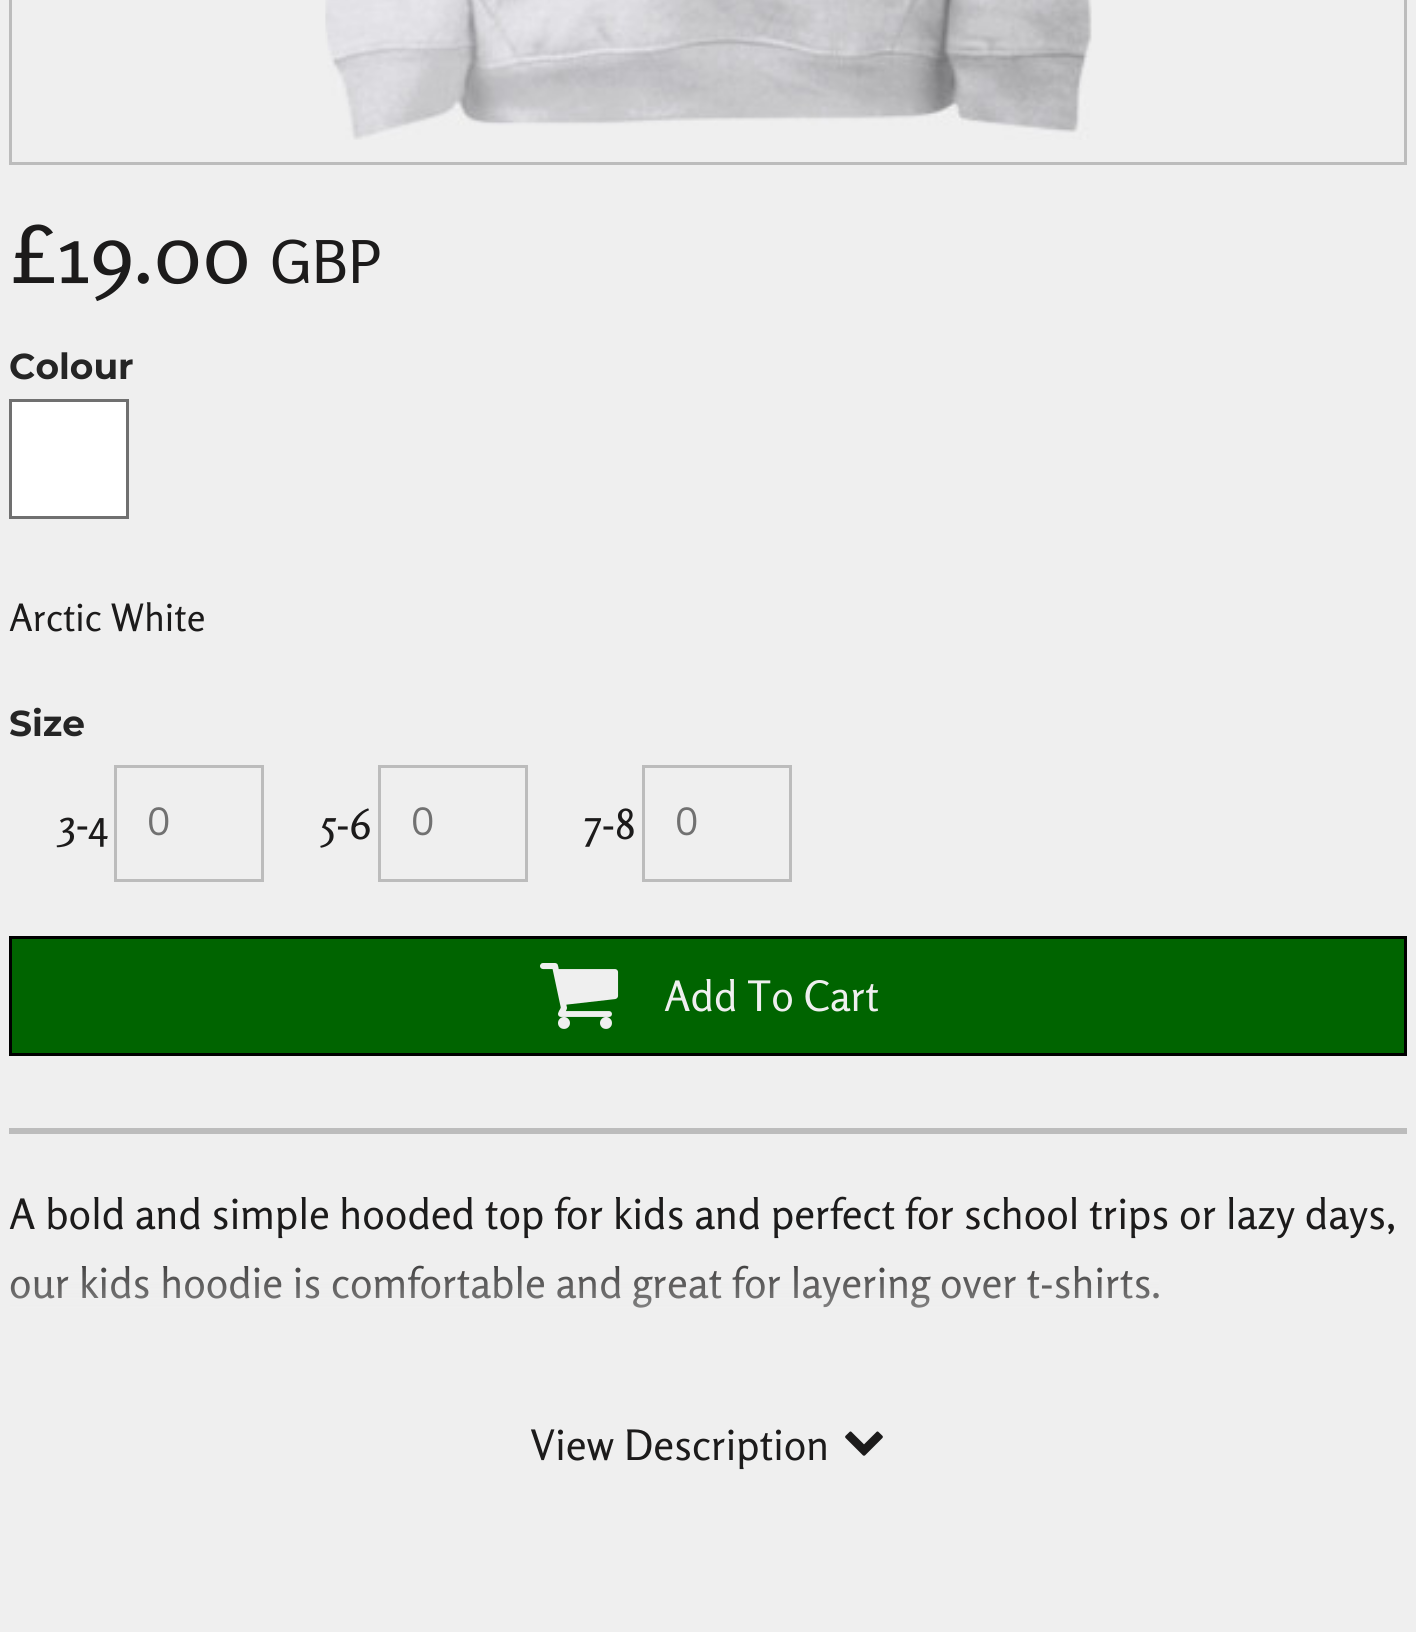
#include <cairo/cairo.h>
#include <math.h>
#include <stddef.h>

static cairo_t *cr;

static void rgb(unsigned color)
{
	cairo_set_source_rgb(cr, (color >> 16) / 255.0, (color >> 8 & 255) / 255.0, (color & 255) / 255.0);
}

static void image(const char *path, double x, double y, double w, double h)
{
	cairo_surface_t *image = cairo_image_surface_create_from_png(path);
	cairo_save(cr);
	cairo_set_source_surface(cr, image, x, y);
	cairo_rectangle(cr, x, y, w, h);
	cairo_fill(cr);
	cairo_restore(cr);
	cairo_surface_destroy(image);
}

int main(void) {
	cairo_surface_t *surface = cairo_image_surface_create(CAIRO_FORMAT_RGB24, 1416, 1632);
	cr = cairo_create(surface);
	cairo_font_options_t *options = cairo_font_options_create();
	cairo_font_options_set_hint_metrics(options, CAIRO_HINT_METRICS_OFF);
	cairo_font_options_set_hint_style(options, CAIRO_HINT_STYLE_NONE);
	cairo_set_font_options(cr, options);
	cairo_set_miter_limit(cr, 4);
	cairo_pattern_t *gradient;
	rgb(0xefefef);
	cairo_paint(cr);
	cairo_rectangle(cr, 10.5, -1.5, 1395, 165);
	rgb(0xbcbcbc);
	cairo_set_line_width(cr, 3);
	cairo_stroke(cr);
	image("img/1.png", 325, 0, 767, 140);
	cairo_rectangle(cr, 10.5, 400.5, 117, 117);
	rgb(0x707070);
	cairo_stroke(cr);
	rgb(0xffffff);
	cairo_rectangle(cr, 12, 402, 114, 114);
	cairo_fill(cr);
	cairo_rectangle(cr, 115.5, 766.5, 147, 114);
	rgb(0xbcbcbc);
	cairo_stroke(cr);
	cairo_rectangle(cr, 379.5, 766.5, 147, 114);
	cairo_stroke(cr);
	cairo_rectangle(cr, 643.5, 766.5, 147, 114);
	cairo_stroke(cr);
	rgb(0x006400);
	cairo_rectangle(cr, 10.5, 937.5, 1395, 117);
	cairo_fill_preserve(cr);
	rgb(0x000000);
	cairo_stroke(cr);
	image("img/2.png", 540, 963, 79, 66);
	rgb(0xbcbcbc);
	cairo_rectangle(cr, 9, 1128, 1398, 6);
	cairo_fill(cr);
	image("img/3.png", 845, 1431, 38, 25);
	cairo_select_font_face(cr, "Rosario", CAIRO_FONT_SLANT_NORMAL, CAIRO_FONT_WEIGHT_NORMAL);
	cairo_set_font_size(cr, 84);
	rgb(0x1c1b1b);
	cairo_move_to(cr, 9, 283);
	cairo_show_text(cr, "£19.00");
	cairo_set_font_size(cr, 59);
	cairo_move_to(cr, 270, 283);
	cairo_show_text(cr, "GBP");
	cairo_select_font_face(cr, "Montserrat Thin", CAIRO_FONT_SLANT_NORMAL, CAIRO_FONT_WEIGHT_NORMAL);
	cairo_set_font_size(cr, 36);
	rgb(0x252525);
	cairo_move_to(cr, 9, 379);
	cairo_show_text(cr, "Colour");
	cairo_select_font_face(cr, "Rosario", CAIRO_FONT_SLANT_NORMAL, CAIRO_FONT_WEIGHT_NORMAL);
	cairo_set_font_size(cr, 37.75);
	rgb(0x1c1b1b);
	cairo_move_to(cr, 9, 631);
	cairo_show_text(cr, "Arctic White");
	cairo_select_font_face(cr, "Montserrat Thin", CAIRO_FONT_SLANT_NORMAL, CAIRO_FONT_WEIGHT_NORMAL);
	cairo_set_font_size(cr, 36);
	rgb(0x252525);
	cairo_move_to(cr, 9, 736);
	cairo_show_text(cr, "Size");
	cairo_select_font_face(cr, "Rosario", CAIRO_FONT_SLANT_NORMAL, CAIRO_FONT_WEIGHT_NORMAL);
	cairo_set_font_size(cr, 42);
	rgb(0x1c1b1b);
	cairo_move_to(cr, 59, 839);
	cairo_show_text(cr, "3-4");
	cairo_select_font_face(cr, "Nunito Sans", CAIRO_FONT_SLANT_NORMAL, CAIRO_FONT_WEIGHT_NORMAL);
	cairo_set_font_size(cr, 39);
	rgb(0x717171);
	cairo_move_to(cr, 147, 835);
	cairo_show_text(cr, "0");
	cairo_select_font_face(cr, "Rosario", CAIRO_FONT_SLANT_NORMAL, CAIRO_FONT_WEIGHT_NORMAL);
	cairo_set_font_size(cr, 42);
	rgb(0x1c1b1b);
	cairo_move_to(cr, 321, 839);
	cairo_show_text(cr, "5-6");
	cairo_select_font_face(cr, "Nunito Sans", CAIRO_FONT_SLANT_NORMAL, CAIRO_FONT_WEIGHT_NORMAL);
	cairo_set_font_size(cr, 39);
	rgb(0x717171);
	cairo_move_to(cr, 411, 835);
	cairo_show_text(cr, "0");
	cairo_select_font_face(cr, "Rosario", CAIRO_FONT_SLANT_NORMAL, CAIRO_FONT_WEIGHT_NORMAL);
	cairo_set_font_size(cr, 42);
	rgb(0x1c1b1b);
	cairo_move_to(cr, 584, 839);
	cairo_show_text(cr, "7-8");
	cairo_select_font_face(cr, "Nunito Sans", CAIRO_FONT_SLANT_NORMAL, CAIRO_FONT_WEIGHT_NORMAL);
	cairo_set_font_size(cr, 39);
	rgb(0x717171);
	cairo_move_to(cr, 675, 835);
	cairo_show_text(cr, "0");
	cairo_select_font_face(cr, "Rosario", CAIRO_FONT_SLANT_NORMAL, CAIRO_FONT_WEIGHT_NORMAL);
	cairo_set_font_size(cr, 42);
	rgb(0xefefef);
	cairo_move_to(cr, 664, 1011);
	cairo_show_text(cr, "Add To Cart");
	rgb(0x1c1b1b);
	cairo_move_to(cr, 9, 1229);
	cairo_show_text(cr, "A bold and simple hooded top for kids and perfect for school trips or lazy days,");
	cairo_move_to(cr, 9, 1298);
	cairo_show_text(cr, "our kids hoodie is comfortable and great for layering over t-shirts.");
	gradient = cairo_pattern_create_linear(708, 1479, 708, 1239);
	cairo_pattern_add_color_stop_rgba(gradient, 0, 0.937, 0.937, 0.937, 1);
	cairo_pattern_add_color_stop_rgba(gradient, 0.4, 0.937, 0.937, 0.937, 1);
	cairo_pattern_add_color_stop_rgba(gradient, 1, 0.937, 0.937, 0.937, 0);
	cairo_set_source(cr, gradient);
	cairo_pattern_destroy(gradient);
	cairo_rectangle(cr, 10, 1265, 1149, 43);
	cairo_fill(cr);
	rgb(0x1c1b1b);
	cairo_move_to(cr, 530, 1460);
	cairo_show_text(cr, "View Description");
	cairo_surface_write_to_png(surface, "page.png");
	cairo_font_options_destroy(options);
	cairo_destroy(cr);
	cairo_surface_destroy(surface);
	return 0;
}
